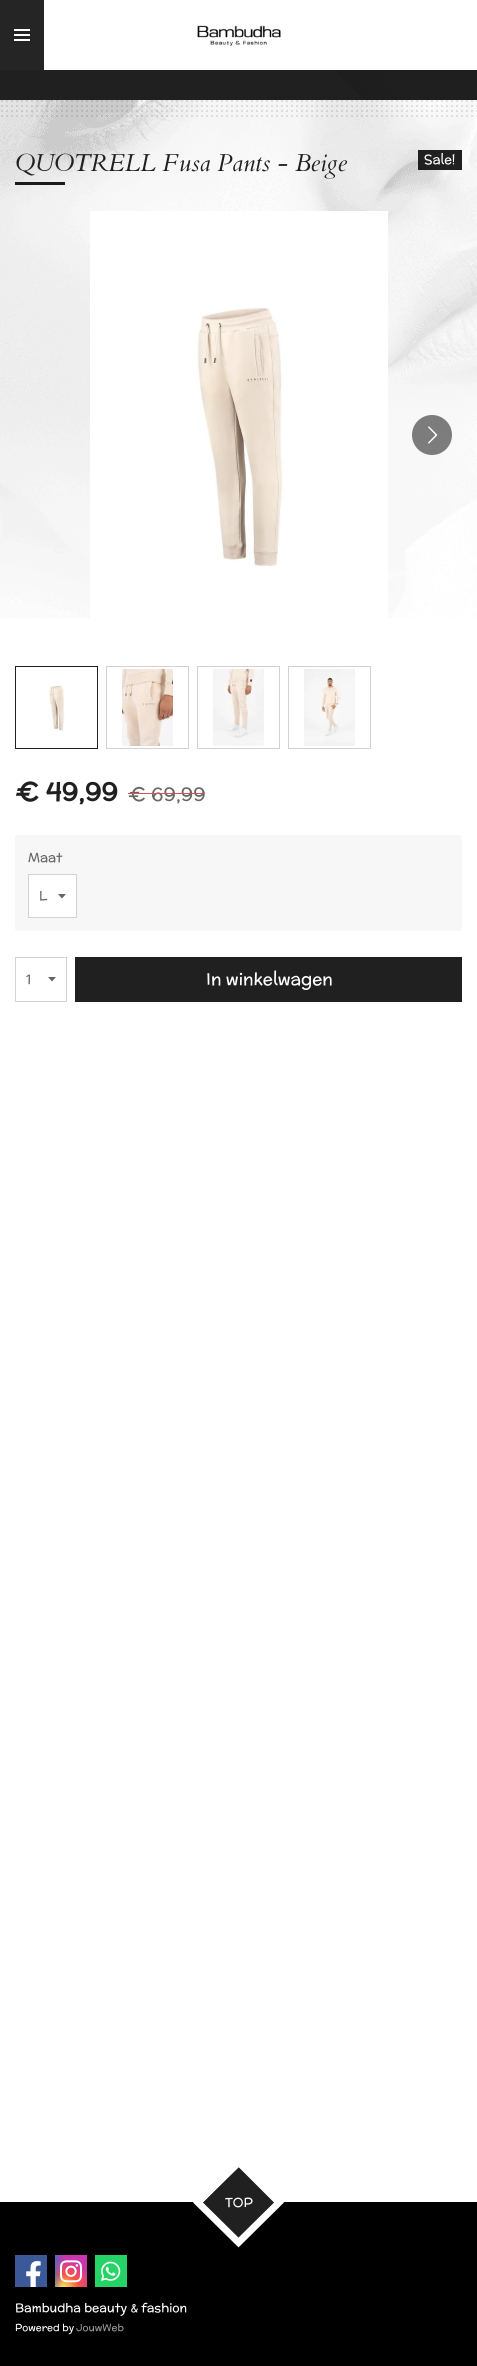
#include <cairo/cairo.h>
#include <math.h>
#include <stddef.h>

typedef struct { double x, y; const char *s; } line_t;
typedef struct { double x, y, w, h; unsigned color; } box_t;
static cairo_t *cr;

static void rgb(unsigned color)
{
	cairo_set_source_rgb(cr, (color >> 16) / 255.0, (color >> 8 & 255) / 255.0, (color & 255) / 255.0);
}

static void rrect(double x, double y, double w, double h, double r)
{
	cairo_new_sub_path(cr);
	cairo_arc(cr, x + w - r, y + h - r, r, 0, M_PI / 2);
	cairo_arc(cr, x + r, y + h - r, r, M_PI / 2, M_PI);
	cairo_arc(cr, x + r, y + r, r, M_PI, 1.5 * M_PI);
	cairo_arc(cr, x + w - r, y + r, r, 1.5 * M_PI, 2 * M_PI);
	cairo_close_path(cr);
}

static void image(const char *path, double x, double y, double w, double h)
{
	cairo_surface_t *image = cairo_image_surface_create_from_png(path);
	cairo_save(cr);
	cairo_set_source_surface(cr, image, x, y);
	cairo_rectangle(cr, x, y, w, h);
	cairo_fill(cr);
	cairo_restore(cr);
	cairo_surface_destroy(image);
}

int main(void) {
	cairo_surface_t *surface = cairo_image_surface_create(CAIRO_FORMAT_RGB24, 477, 2366);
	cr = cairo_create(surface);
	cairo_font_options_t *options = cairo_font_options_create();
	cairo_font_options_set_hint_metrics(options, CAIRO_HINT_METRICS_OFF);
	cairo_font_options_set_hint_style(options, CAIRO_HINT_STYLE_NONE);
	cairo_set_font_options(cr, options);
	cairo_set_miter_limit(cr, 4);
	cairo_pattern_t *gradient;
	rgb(0xffffff);
	cairo_paint(cr);
	{
		static const box_t items[] = {
			{0, 0, 44, 70, 0x252525},
			{14, 34, 16, 2, 0xffffff},
			{14, 29, 16, 2, 0xffffff},
			{14, 39, 16, 2, 0xffffff},
		};
		for (size_t i = 0; i < sizeof items / sizeof *items; i++) {
			rgb(items[i].color);
			cairo_rectangle(cr, items[i].x, items[i].y, items[i].w, items[i].h);
			cairo_fill(cr);
		}
	}
	image("img/1.png", 197, 25, 84, 22);
	image("img/2.png", 1, 100, 476, 17);
	rgb(0x202020);
	cairo_rectangle(cr, 334, 70, 143, 30);
	cairo_fill(cr);
	image("img/3.png", 0, 70, 477, 548);
	cairo_rectangle(cr, 0, 70, 334, 30);
	cairo_fill(cr);
	cairo_new_path(cr);
	cairo_move_to(cr, 334, 100);
	cairo_line_to(cr, 334, 70);
	cairo_line_to(cr, 364, 100);
	cairo_close_path(cr);
	cairo_fill(cr);
	rgb(0x1a1a1a);
	cairo_rectangle(cr, 15, 182, 50, 3);
	cairo_fill(cr);
	rgb(0x202020);
	cairo_rectangle(cr, 418, 150, 44, 20);
	cairo_fill(cr);
	image("img/4.png", 90, 211, 298, 431);
	cairo_set_source_rgba(cr, 0, 0, 0, 0.5);
	cairo_arc(cr, 432, 435, 20, 0, 2 * M_PI);
	cairo_fill(cr);
	image("img/5.png", 428, 426, 10, 18);
	cairo_rectangle(cr, 15.5, 666.5, 82, 82);
	rgb(0x202020);
	cairo_set_line_width(cr, 1);
	cairo_stroke(cr);
	image("img/6.png", 48, 685, 17, 46);
	cairo_rectangle(cr, 106.5, 666.5, 82, 82);
	rgb(0xd1d1d1);
	cairo_stroke(cr);
	image("img/7.png", 122, 669, 51, 77);
	cairo_rectangle(cr, 197.5, 666.5, 82, 82);
	cairo_stroke(cr);
	image("img/8.png", 213, 669, 51, 77);
	cairo_rectangle(cr, 288.5, 666.5, 82, 82);
	cairo_stroke(cr);
	image("img/9.png", 304, 669, 51, 77);
	rgb(0xf7f7f7);
	rrect(15, 835, 447, 96, 2.5);
	cairo_fill(cr);
	rgb(0xffffff);
	cairo_rectangle(cr, 29, 875, 47, 42);
	cairo_fill(cr);
	rgb(0x666666);
	cairo_new_path(cr);
	cairo_move_to(cr, 62, 898.5);
	cairo_line_to(cr, 58, 894);
	cairo_line_to(cr, 66, 894);
	cairo_close_path(cr);
	cairo_fill(cr);
	cairo_rectangle(cr, 28.5, 874.5, 48, 43);
	rgb(0xd3d3d3);
	cairo_stroke(cr);
	rgb(0x666666);
	cairo_new_path(cr);
	cairo_move_to(cr, 52, 981.5);
	cairo_line_to(cr, 48, 977);
	cairo_line_to(cr, 56, 977);
	cairo_close_path(cr);
	cairo_fill(cr);
	cairo_rectangle(cr, 15.5, 957.5, 51, 44);
	rgb(0xd3d3d3);
	cairo_stroke(cr);
	rgb(0x202020);
	cairo_rectangle(cr, 75, 957, 387, 45);
	cairo_fill(cr);
	rgb(0x000000);
	cairo_rectangle(cr, 0, 2202, 477, 164);
	cairo_fill(cr);
	rgb(0x202020);
	cairo_new_path(cr);
	cairo_move_to(cr, 239, 2167);
	cairo_line_to(cr, 274, 2202);
	cairo_line_to(cr, 239, 2238);
	cairo_line_to(cr, 203, 2202);
	cairo_close_path(cr);
	cairo_fill(cr);
	cairo_new_path(cr);
	cairo_move_to(cr, 238.5, 2162);
	cairo_line_to(cr, 279, 2202.5);
	cairo_line_to(cr, 238.5, 2242.5);
	cairo_line_to(cr, 198, 2202.5);
	cairo_close_path(cr);
	rgb(0xffffff);
	cairo_set_line_width(cr, 7);
	cairo_stroke(cr);
	rgb(0x3b5998);
	cairo_rectangle(cr, 15, 2255, 32, 32);
	cairo_fill(cr);
	image("img/10.png", 26, 2261, 15, 26);
	gradient = cairo_pattern_create_radial(0, 0, 0, 0, 0, 1);
	cairo_pattern_set_matrix(gradient, &(cairo_matrix_t){1.0 / 31, 0, 0, 1.0 / 29, -1.0 * 63 / 31, -1.0 * 2289 / 29});
	cairo_pattern_add_color_stop_rgba(gradient, 0, 1, 0.867, 0.333, 1);
	cairo_pattern_add_color_stop_rgba(gradient, 0.1, 1, 0.867, 0.333, 1);
	cairo_pattern_add_color_stop_rgba(gradient, 0.5, 1, 0.329, 0.243, 1);
	cairo_pattern_add_color_stop_rgba(gradient, 1, 0.784, 0.216, 0.671, 1);
	cairo_set_source(cr, gradient);
	cairo_pattern_destroy(gradient);
	cairo_rectangle(cr, 55, 2255, 32, 32);
	cairo_fill(cr);
	gradient = cairo_pattern_create_radial(0, 0, 0, 0, 0, 1);
	cairo_pattern_set_matrix(gradient, &(cairo_matrix_t){1.0 / 14, 0, 0, 1.0 / 58, -1.0 * 50 / 14, -1.0 * 2257 / 58});
	cairo_pattern_add_color_stop_rgba(gradient, 0, 0.216, 0.443, 0.784, 1);
	cairo_pattern_add_color_stop_rgba(gradient, 0.13, 0.216, 0.443, 0.784, 1);
	cairo_pattern_add_color_stop_rgba(gradient, 1, 0.216, 0.443, 0.784, 0);
	cairo_set_source(cr, gradient);
	cairo_pattern_destroy(gradient);
	cairo_rectangle(cr, 55, 2255, 9, 32);
	cairo_fill(cr);
	image("img/11.png", 60, 2260, 22, 23);
	rgb(0x25d366);
	cairo_rectangle(cr, 95, 2255, 32, 32);
	cairo_fill(cr);
	image("img/12.png", 101, 2261, 20, 20);
	cairo_select_font_face(cr, "Cardo", CAIRO_FONT_SLANT_ITALIC, CAIRO_FONT_WEIGHT_NORMAL);
	cairo_set_font_size(cr, 24.5);
	rgb(0x202020);
	cairo_move_to(cr, 15, 171);
	cairo_show_text(cr, "QUOTRELL Fusa Pants - Beige");
	cairo_select_font_face(cr, "McLaren", CAIRO_FONT_SLANT_NORMAL, CAIRO_FONT_WEIGHT_NORMAL);
	cairo_set_font_size(cr, 13);
	rgb(0xffffff);
	cairo_move_to(cr, 424, 164);
	cairo_show_text(cr, "Sale!");
	cairo_select_font_face(cr, "McLaren", CAIRO_FONT_SLANT_NORMAL, CAIRO_FONT_WEIGHT_BOLD);
	cairo_set_font_size(cr, 26);
	rgb(0x202020);
	cairo_move_to(cr, 15, 801);
	cairo_show_text(cr, "€ 49,99");
	cairo_select_font_face(cr, "McLaren", CAIRO_FONT_SLANT_NORMAL, CAIRO_FONT_WEIGHT_NORMAL);
	cairo_set_font_size(cr, 19.5);
	rgb(0x666666);
	cairo_move_to(cr, 128, 801);
	cairo_show_text(cr, "€ 69,99");
	rgb(0xd9534f);
	cairo_rectangle(cr, 128, 793, 77, 1);
	cairo_fill(cr);
	cairo_set_font_size(cr, 13);
	rgb(0x666666);
	{
		static const line_t items[] = {
			{28, 862, "Maat"},
			{39, 900, "L"},
			{26, 984, "1"},
		};
		for (size_t i = 0; i < sizeof items / sizeof *items; i++) {
			cairo_move_to(cr, items[i].x, items[i].y);
			cairo_show_text(cr, items[i].s);
		}
	}
	cairo_set_font_size(cr, 17);
	rgb(0xffffff);
	cairo_move_to(cr, 206, 985);
	cairo_show_text(cr, "In winkelwagen");
	cairo_set_font_size(cr, 13);
	cairo_move_to(cr, 225, 2207);
	cairo_show_text(cr, "TOP");
	cairo_set_font_size(cr, 12.25);
	cairo_move_to(cr, 15, 2312);
	cairo_show_text(cr, "Bambudha beauty & fashion");
	cairo_set_font_size(cr, 10);
	cairo_move_to(cr, 15, 2331);
	cairo_show_text(cr, "Powered by");
	rgb(0x999999);
	cairo_move_to(cr, 76, 2331);
	cairo_show_text(cr, "JouwWeb");
	cairo_surface_write_to_png(surface, "page.png");
	cairo_font_options_destroy(options);
	cairo_destroy(cr);
	cairo_surface_destroy(surface);
	return 0;
}
